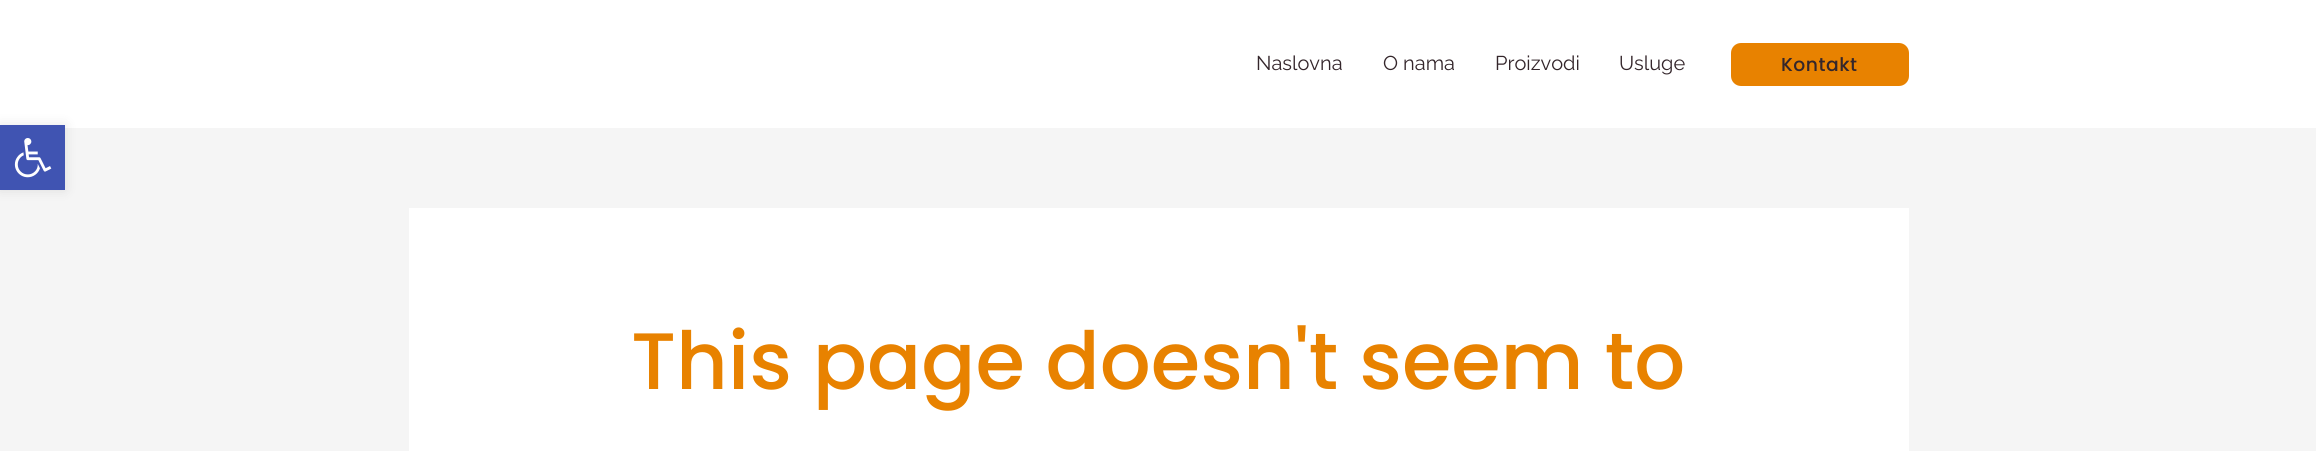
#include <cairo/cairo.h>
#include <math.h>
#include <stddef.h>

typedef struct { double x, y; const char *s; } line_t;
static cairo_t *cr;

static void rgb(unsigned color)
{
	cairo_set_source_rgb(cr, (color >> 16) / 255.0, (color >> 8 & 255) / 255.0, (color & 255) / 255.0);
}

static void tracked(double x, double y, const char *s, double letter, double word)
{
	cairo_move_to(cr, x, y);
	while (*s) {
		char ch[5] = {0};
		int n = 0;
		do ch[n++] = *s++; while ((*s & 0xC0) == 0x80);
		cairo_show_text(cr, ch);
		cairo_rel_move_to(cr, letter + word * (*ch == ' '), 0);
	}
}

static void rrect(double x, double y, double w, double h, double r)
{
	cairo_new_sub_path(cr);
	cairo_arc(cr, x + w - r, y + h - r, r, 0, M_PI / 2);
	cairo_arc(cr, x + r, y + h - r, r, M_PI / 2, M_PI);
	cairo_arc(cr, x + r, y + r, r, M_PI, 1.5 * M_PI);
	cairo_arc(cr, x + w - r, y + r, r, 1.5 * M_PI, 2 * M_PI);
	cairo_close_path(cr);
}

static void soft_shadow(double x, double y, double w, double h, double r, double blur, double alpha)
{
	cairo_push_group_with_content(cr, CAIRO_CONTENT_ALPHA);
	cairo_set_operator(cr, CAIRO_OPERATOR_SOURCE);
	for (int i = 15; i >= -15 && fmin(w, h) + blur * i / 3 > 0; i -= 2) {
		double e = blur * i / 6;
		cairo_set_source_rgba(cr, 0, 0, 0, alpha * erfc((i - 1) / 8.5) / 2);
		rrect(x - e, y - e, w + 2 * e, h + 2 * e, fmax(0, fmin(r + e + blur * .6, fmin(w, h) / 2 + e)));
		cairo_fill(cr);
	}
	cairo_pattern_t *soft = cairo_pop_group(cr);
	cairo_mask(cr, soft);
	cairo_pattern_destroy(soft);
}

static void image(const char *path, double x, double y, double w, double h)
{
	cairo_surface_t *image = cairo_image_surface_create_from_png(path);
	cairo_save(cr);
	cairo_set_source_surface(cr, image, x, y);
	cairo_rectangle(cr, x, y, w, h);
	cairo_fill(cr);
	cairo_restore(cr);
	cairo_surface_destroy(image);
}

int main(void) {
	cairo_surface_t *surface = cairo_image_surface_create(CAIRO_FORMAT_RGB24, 2316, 451);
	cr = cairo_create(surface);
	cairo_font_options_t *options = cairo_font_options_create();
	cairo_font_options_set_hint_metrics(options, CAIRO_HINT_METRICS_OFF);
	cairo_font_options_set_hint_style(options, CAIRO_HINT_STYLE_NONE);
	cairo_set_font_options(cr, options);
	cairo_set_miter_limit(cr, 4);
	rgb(0xf5f5f5);
	cairo_paint(cr);
	rgb(0xffffff);
	cairo_rectangle(cr, 0, 0, 2316, 128);
	cairo_fill(cr);
	rgb(0x000000);
	soft_shadow(0, 125, 65, 65, 0, 6, 0.1);
	rgb(0x4054b2);
	cairo_rectangle(cr, 0, 125, 65, 65);
	cairo_fill(cr);
	image("img/1.png", 14, 138, 38, 40);
	rgb(0xe88200);
	rrect(1731, 43, 178, 43, 10);
	cairo_fill(cr);
	rgb(0xffffff);
	cairo_rectangle(cr, 409, 208, 1500, 243);
	cairo_fill(cr);
	cairo_select_font_face(cr, "Raleway Thin", CAIRO_FONT_SLANT_NORMAL, CAIRO_FONT_WEIGHT_NORMAL);
	cairo_set_font_size(cr, 20);
	rgb(0x34262b);
	{
		static const line_t items[] = {
			{1256, 70, "Naslovna"},
			{1383, 70, "O nama"},
			{1495, 70, "Proizvodi"},
			{1619, 70, "Usluge"},
		};
		for (size_t i = 0; i < sizeof items / sizeof *items; i++) {
			cairo_move_to(cr, items[i].x, items[i].y);
			cairo_show_text(cr, items[i].s);
		}
	}
	cairo_select_font_face(cr, "Poppins Medium", CAIRO_FONT_SLANT_NORMAL, CAIRO_FONT_WEIGHT_NORMAL);
	cairo_set_font_size(cr, 18.75);
	tracked(1781, 71, "Kontakt", 0.5, 0);
	cairo_set_font_size(cr, 80);
	rgb(0xe88200);
	cairo_move_to(cr, 631, 389);
	cairo_show_text(cr, "This page doesn't seem to");
	cairo_surface_write_to_png(surface, "page.png");
	cairo_font_options_destroy(options);
	cairo_destroy(cr);
	cairo_surface_destroy(surface);
	return 0;
}
